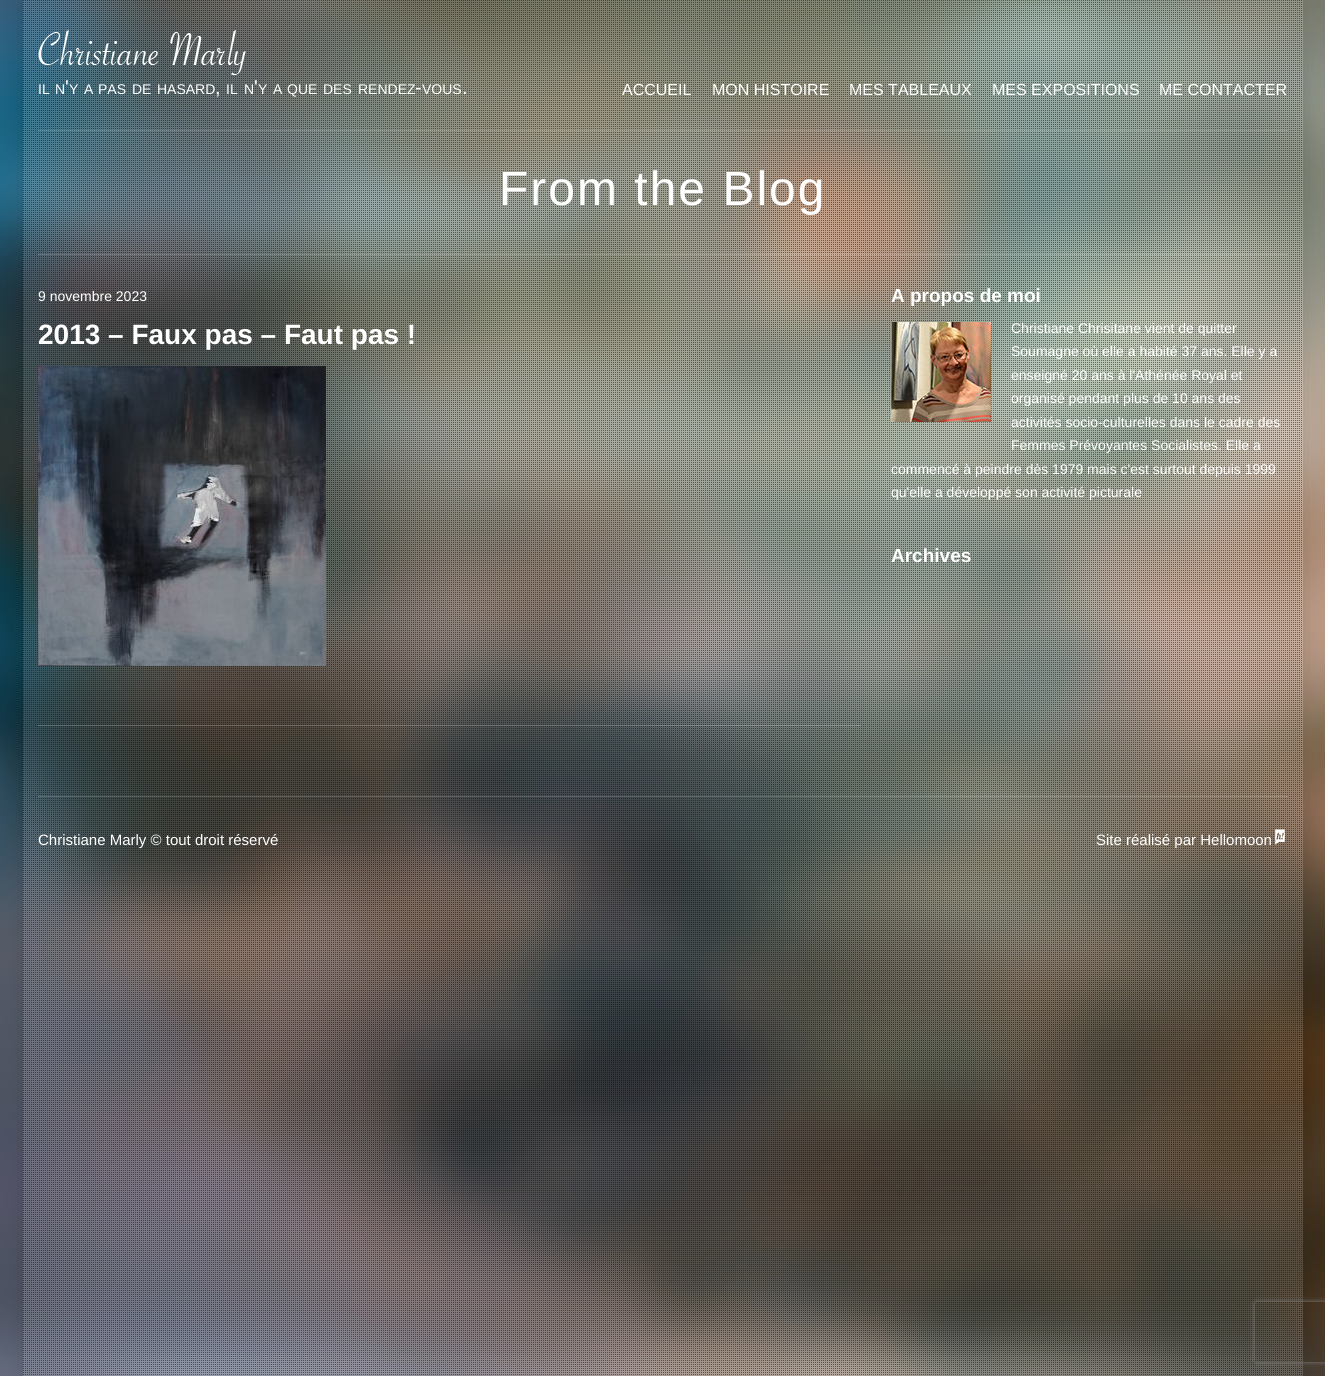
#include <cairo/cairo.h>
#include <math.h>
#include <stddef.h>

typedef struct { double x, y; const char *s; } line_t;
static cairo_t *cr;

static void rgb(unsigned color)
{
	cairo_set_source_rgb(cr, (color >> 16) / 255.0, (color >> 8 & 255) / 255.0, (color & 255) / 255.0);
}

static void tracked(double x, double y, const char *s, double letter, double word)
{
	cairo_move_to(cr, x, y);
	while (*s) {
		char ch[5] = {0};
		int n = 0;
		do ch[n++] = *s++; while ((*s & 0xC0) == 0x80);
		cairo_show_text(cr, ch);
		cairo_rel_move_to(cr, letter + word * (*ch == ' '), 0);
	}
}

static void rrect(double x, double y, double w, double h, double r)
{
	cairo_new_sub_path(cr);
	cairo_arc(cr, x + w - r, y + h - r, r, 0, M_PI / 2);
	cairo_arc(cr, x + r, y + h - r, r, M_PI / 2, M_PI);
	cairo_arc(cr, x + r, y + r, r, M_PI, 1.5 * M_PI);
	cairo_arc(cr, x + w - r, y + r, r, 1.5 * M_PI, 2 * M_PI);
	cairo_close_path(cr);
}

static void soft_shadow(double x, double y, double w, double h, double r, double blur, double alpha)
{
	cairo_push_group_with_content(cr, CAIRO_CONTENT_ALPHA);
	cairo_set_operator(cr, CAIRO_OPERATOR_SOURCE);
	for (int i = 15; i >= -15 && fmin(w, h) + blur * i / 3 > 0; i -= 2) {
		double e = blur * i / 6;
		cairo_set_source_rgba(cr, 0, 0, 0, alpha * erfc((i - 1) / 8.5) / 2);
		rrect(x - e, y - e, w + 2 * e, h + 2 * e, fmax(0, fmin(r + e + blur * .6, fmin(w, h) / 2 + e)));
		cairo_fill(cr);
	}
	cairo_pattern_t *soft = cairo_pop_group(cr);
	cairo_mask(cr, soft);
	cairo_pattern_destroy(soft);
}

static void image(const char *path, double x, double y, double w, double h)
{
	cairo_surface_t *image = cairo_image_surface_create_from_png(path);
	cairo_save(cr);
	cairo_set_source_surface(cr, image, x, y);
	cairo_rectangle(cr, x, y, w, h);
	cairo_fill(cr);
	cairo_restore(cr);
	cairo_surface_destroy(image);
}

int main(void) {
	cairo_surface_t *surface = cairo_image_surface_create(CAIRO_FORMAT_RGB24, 1325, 1376);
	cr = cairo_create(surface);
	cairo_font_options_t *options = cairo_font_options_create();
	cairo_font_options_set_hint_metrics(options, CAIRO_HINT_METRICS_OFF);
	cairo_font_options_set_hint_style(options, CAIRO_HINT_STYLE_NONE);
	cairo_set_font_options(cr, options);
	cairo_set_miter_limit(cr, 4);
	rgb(0xffffff);
	cairo_paint(cr);
	image("img/1.png", 0, 0, 1325, 1376);
	cairo_save(cr);
	cairo_set_fill_rule(cr, CAIRO_FILL_RULE_EVEN_ODD);
	cairo_new_path(cr);
	cairo_move_to(cr, 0, 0);
	cairo_line_to(cr, 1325, 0);
	cairo_line_to(cr, 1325, 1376);
	cairo_line_to(cr, 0, 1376);
	cairo_close_path(cr);
	cairo_move_to(cr, 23, 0);
	cairo_line_to(cr, 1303, 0);
	cairo_line_to(cr, 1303, 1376);
	cairo_line_to(cr, 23, 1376);
	cairo_close_path(cr);
	cairo_clip(cr);
	rgb(0x000000);
	soft_shadow(23, 0, 1280, 1376, 0, 12.5, 0.15);
	cairo_restore(cr);
	image("img/2.png", 23, 0, 1279, 1375);
	image("img/3.png", 38, 30, 208, 45);
	cairo_set_source_rgba(cr, 1, 1, 1, 0.2);
	cairo_rectangle(cr, 38, 130, 1250, 1);
	cairo_fill(cr);
	cairo_rectangle(cr, 38, 254, 1250, 1);
	cairo_fill(cr);
	image("img/4.png", 38, 366, 288, 300);
	cairo_rectangle(cr, 38, 725, 823, 1);
	cairo_fill(cr);
	image("img/5.png", 891, 322, 100, 100);
	cairo_rectangle(cr, 38, 796, 1250, 1);
	cairo_fill(cr);
	image("img/6.png", 1275, 829, 10, 16);
	cairo_save(cr);
	cairo_set_fill_rule(cr, CAIRO_FILL_RULE_EVEN_ODD);
	cairo_new_path(cr);
	cairo_move_to(cr, 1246, 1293);
	cairo_line_to(cr, 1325, 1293);
	cairo_line_to(cr, 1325, 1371);
	cairo_line_to(cr, 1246, 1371);
	cairo_close_path(cr);
	cairo_move_to(cr, 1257, 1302);
	cairo_line_to(cr, 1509, 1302);
	cairo_curve_to(cr, 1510, 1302, 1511, 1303, 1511, 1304);
	cairo_line_to(cr, 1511, 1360);
	cairo_curve_to(cr, 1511, 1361, 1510, 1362, 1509, 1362);
	cairo_line_to(cr, 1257, 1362);
	cairo_curve_to(cr, 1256, 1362, 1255, 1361, 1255, 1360);
	cairo_line_to(cr, 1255, 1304);
	cairo_curve_to(cr, 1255, 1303, 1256, 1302, 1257, 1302);
	cairo_close_path(cr);
	cairo_clip(cr);
	rgb(0x808080);
	soft_shadow(1255, 1302, 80, 60, 2, 2.5, 1);
	cairo_restore(cr);
	cairo_select_font_face(cr, "Liberation Sans", CAIRO_FONT_SLANT_NORMAL, CAIRO_FONT_WEIGHT_NORMAL);
	cairo_set_font_size(cr, 20);
	rgb(0xffffff);
	cairo_move_to(cr, 65, 94);
	cairo_show_text(cr, "'");
	cairo_move_to(cr, 254, 94);
	cairo_show_text(cr, "'");
	cairo_set_font_size(cr, 14);
	{
		static const line_t items[] = {
			{38, 94, "IL"},
			{55, 94, "N Y"},
			{84, 94, "A"},
			{98, 94, "PAS"},
			{132, 94, "DE"},
			{157, 94, "HASARD"},
			{226, 94, "IL"},
			{244, 94, "N Y"},
			{273, 94, "A"},
			{287, 94, "QUE"},
			{323, 94, "DES"},
			{358, 94, "RENDEZ"},
		};
		for (size_t i = 0; i < sizeof items / sizeof *items; i++) {
			cairo_move_to(cr, items[i].x, items[i].y);
			cairo_show_text(cr, items[i].s);
		}
	}
	cairo_set_font_size(cr, 20);
	cairo_move_to(cr, 415, 94);
	cairo_show_text(cr, "-");
	cairo_set_font_size(cr, 14);
	cairo_move_to(cr, 422, 94);
	cairo_show_text(cr, "VOUS");
	cairo_set_font_size(cr, 20);
	cairo_move_to(cr, 215, 94);
	cairo_show_text(cr, ",");
	cairo_move_to(cr, 462, 94);
	cairo_show_text(cr, ".");
	cairo_set_font_size(cr, 16);
	{
		static const line_t items[] = {
			{622, 95, "ACCUEIL"},
			{712, 95, "MON HISTOIRE"},
			{849, 95, "MES TABLEAUX"},
			{992, 95, "MES EXPOSITIONS"},
			{1159, 95, "ME CONTACTER"},
		};
		for (size_t i = 0; i < sizeof items / sizeof *items; i++) {
			cairo_move_to(cr, items[i].x, items[i].y);
			cairo_show_text(cr, items[i].s);
		}
	}
	cairo_set_font_size(cr, 48);
	tracked(499, 205, "From the Blog", 2, 0);
	cairo_set_font_size(cr, 14);
	cairo_move_to(cr, 38, 301);
	cairo_show_text(cr, "9 novembre 2023");
	cairo_select_font_face(cr, "Liberation Sans", CAIRO_FONT_SLANT_NORMAL, CAIRO_FONT_WEIGHT_BOLD);
	cairo_set_font_size(cr, 28);
	cairo_move_to(cr, 38, 344);
	cairo_show_text(cr, "2013 – Faux pas – Faut pas !");
	cairo_set_font_size(cr, 19);
	cairo_move_to(cr, 891, 302);
	cairo_show_text(cr, "A propos de moi");
	cairo_select_font_face(cr, "Liberation Sans", CAIRO_FONT_SLANT_NORMAL, CAIRO_FONT_WEIGHT_NORMAL);
	cairo_set_font_size(cr, 14);
	{
		static const line_t items[] = {
			{1011, 333, "Christiane Chrisitane vient de quitter"},
			{1011, 356, "Soumagne où elle a habité 37 ans. Elle y a"},
			{1011, 380, "enseigné 20 ans à l'Athénée Royal et"},
			{1011, 403, "organisé pendant plus de 10 ans des"},
			{1011, 427, "activités socio-culturelles dans le cadre des"},
			{1011, 450, "Femmes Prévoyantes Socialistes. Elle a"},
			{891, 474, "commencé à peindre dès 1979 mais c'est surtout depuis 1999"},
			{891, 497, "qu'elle a développé son activité picturale"},
		};
		for (size_t i = 0; i < sizeof items / sizeof *items; i++) {
			cairo_move_to(cr, items[i].x, items[i].y);
			cairo_show_text(cr, items[i].s);
		}
	}
	cairo_select_font_face(cr, "Liberation Sans", CAIRO_FONT_SLANT_NORMAL, CAIRO_FONT_WEIGHT_BOLD);
	cairo_set_font_size(cr, 19);
	cairo_move_to(cr, 891, 562);
	cairo_show_text(cr, "Archives");
	cairo_select_font_face(cr, "Liberation Sans", CAIRO_FONT_SLANT_NORMAL, CAIRO_FONT_WEIGHT_NORMAL);
	cairo_set_font_size(cr, 15);
	cairo_move_to(cr, 38, 845);
	cairo_show_text(cr, "Christiane Marly © tout droit réservé");
	cairo_move_to(cr, 1096, 845);
	cairo_show_text(cr, "Site réalisé par Hellomoon");
	cairo_surface_write_to_png(surface, "page.png");
	cairo_font_options_destroy(options);
	cairo_destroy(cr);
	cairo_surface_destroy(surface);
	return 0;
}
